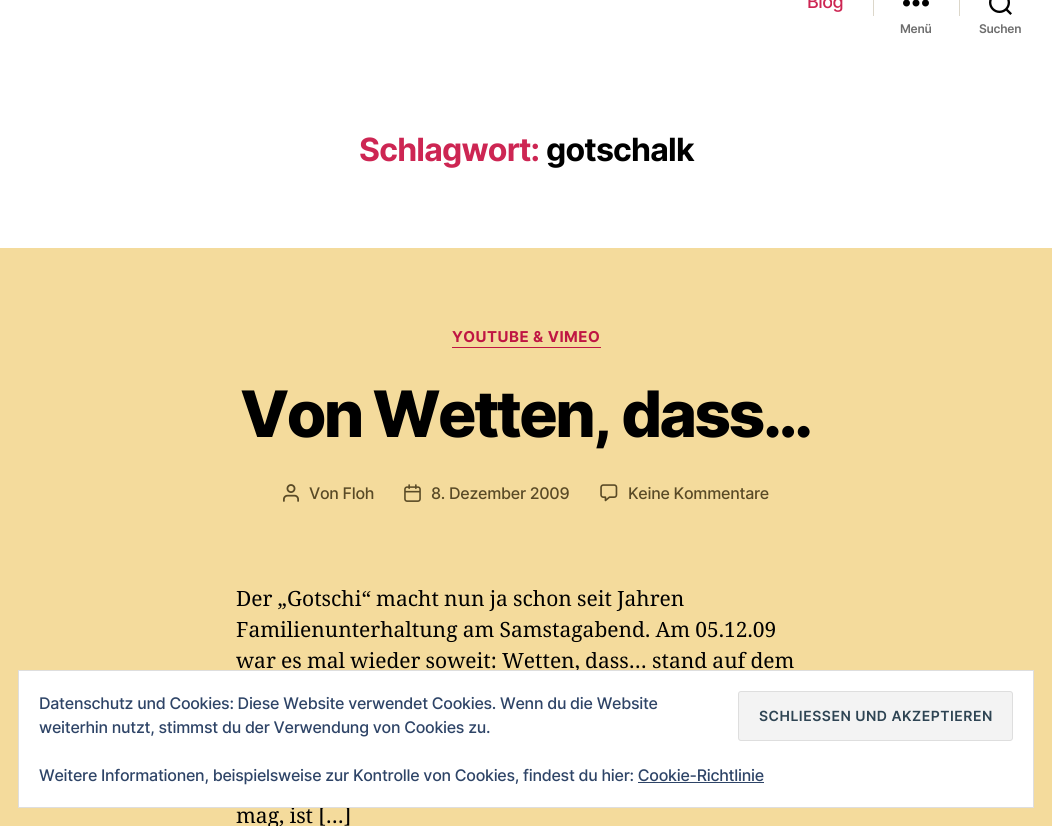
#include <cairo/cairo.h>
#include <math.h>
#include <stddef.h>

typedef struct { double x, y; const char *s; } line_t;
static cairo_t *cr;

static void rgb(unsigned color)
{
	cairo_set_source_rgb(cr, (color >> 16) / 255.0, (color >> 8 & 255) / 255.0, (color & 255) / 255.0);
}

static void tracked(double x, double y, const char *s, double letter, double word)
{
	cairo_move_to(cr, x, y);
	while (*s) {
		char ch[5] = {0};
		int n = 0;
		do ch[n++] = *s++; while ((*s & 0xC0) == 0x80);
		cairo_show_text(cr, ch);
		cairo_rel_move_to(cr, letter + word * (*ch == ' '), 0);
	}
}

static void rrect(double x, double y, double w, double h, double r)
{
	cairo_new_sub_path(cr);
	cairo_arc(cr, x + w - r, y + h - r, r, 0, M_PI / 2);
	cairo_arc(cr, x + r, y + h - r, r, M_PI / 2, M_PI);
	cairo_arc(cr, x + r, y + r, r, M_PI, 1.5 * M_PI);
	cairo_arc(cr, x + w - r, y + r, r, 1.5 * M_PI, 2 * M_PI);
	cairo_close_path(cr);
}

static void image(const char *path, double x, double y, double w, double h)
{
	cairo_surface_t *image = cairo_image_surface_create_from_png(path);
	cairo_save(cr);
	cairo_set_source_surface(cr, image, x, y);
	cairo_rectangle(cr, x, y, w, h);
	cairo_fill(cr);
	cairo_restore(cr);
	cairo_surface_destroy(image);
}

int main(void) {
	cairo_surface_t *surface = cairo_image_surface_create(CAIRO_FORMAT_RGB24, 1052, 826);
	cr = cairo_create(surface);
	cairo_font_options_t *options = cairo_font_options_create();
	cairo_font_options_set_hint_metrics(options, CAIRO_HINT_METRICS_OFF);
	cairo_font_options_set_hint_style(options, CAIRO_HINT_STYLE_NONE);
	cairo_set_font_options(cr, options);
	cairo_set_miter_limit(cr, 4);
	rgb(0xf4db9c);
	cairo_paint(cr);
	rgb(0xffffff);
	cairo_rectangle(cr, 0, 0, 1052, 248);
	cairo_fill(cr);
	rgb(0xdcd7ca);
	cairo_rectangle(cr, 873, 0, 1, 16);
	cairo_fill(cr);
	image("img/1.png", 903, 0, 26, 7);
	cairo_rectangle(cr, 959, 0, 1, 16);
	cairo_fill(cr);
	image("img/2.png", 989, 0, 23, 15);
	rgb(0xbf1643);
	cairo_rectangle(cr, 452, 347, 149, 1);
	cairo_fill(cr);
	image("img/3.png", 283, 484, 16, 18);
	image("img/4.png", 404, 484, 17, 18);
	image("img/5.png", 600, 484, 18, 18);
	cairo_select_font_face(cr, "Inter Medium", CAIRO_FONT_SLANT_NORMAL, CAIRO_FONT_WEIGHT_NORMAL);
	cairo_set_font_size(cr, 18);
	rgb(0xcd2653);
	tracked(807, 8, "Blog", -0.5, 0);
	cairo_select_font_face(cr, "Inter SemiBold", CAIRO_FONT_SLANT_NORMAL, CAIRO_FONT_WEIGHT_NORMAL);
	cairo_set_font_size(cr, 12);
	rgb(0x6d6d6d);
	tracked(900, 33, "Menü", -0.27, 0);
	tracked(979, 33, "Suchen", -0.27, 0);
	cairo_select_font_face(cr, "Inter", CAIRO_FONT_SLANT_NORMAL, CAIRO_FONT_WEIGHT_BOLD);
	cairo_set_font_size(cr, 32);
	rgb(0xcd2653);
	tracked(359, 161, "Schlagwort:", -0.8, 0);
	rgb(0x000000);
	tracked(546, 161, "gotschalk", -0.8, 0);
	cairo_set_font_size(cr, 15);
	rgb(0xbf1643);
	tracked(452, 342, "YOUTUBE & VIMEO", 0.5, 0);
	cairo_select_font_face(cr, "Inter ExtraBold", CAIRO_FONT_SLANT_NORMAL, CAIRO_FONT_WEIGHT_NORMAL);
	cairo_set_font_size(cr, 64);
	rgb(0x000000);
	tracked(240, 437, "Von Wetten, dass…", -2.7, 0);
	cairo_select_font_face(cr, "Inter Medium", CAIRO_FONT_SLANT_NORMAL, CAIRO_FONT_WEIGHT_NORMAL);
	cairo_set_font_size(cr, 16);
	rgb(0x594a26);
	{
		static const line_t items[] = {
			{309, 499, "Von Floh"},
			{431, 499, "8. Dezember 2009"},
			{628, 499, "Keine Kommentare"},
		};
		for (size_t i = 0; i < sizeof items / sizeof *items; i++) {
			tracked(items[i].x, items[i].y, items[i].s, -0.27, 0);
		}
	}
	cairo_select_font_face(cr, "Noto Serif", CAIRO_FONT_SLANT_NORMAL, CAIRO_FONT_WEIGHT_NORMAL);
	cairo_set_font_size(cr, 21);
	rgb(0x000000);
	{
		static const line_t items[] = {
			{236, 606, "Der „Gotschi“ macht nun ja schon seit Jahren"},
			{236, 637, "Familienunterhaltung am Samstagabend. Am 05.12.09"},
			{236, 668, "war es mal wieder soweit: Wetten, dass… stand auf dem"},
			{236, 823, "mag, ist […]"},
		};
		for (size_t i = 0; i < sizeof items / sizeof *items; i++) {
			tracked(items[i].x, items[i].y, items[i].s, 0, -0.25);
		}
	}
	rgb(0xffffff);
	cairo_rectangle(cr, 18.5, 670.5, 1015, 137);
	cairo_fill_preserve(cr);
	rgb(0xdedede);
	cairo_set_line_width(cr, 1);
	cairo_stroke(cr);
	cairo_select_font_face(cr, "Inter Medium", CAIRO_FONT_SLANT_NORMAL, CAIRO_FONT_WEIGHT_NORMAL);
	cairo_set_font_size(cr, 16);
	rgb(0x2e4467);
	tracked(39, 709, "Datenschutz und Cookies: Diese Website verwendet Cookies. Wenn du die Website", -0.27, 0);
	rgb(0xf3f3f3);
	rrect(738.5, 691.5, 274, 49, 2.5);
	cairo_fill_preserve(cr);
	rgb(0xdedede);
	cairo_stroke(cr);
	cairo_select_font_face(cr, "Inter SemiBold", CAIRO_FONT_SLANT_NORMAL, CAIRO_FONT_WEIGHT_NORMAL);
	cairo_set_font_size(cr, 14);
	rgb(0x2e4453);
	tracked(759, 721, "SCHLIESSEN UND AKZEPTIEREN", 0.5, 0);
	cairo_select_font_face(cr, "Inter Medium", CAIRO_FONT_SLANT_NORMAL, CAIRO_FONT_WEIGHT_NORMAL);
	cairo_set_font_size(cr, 16);
	rgb(0x2e4467);
	tracked(39, 733, "weiterhin nutzt, stimmst du der Verwendung von Cookies zu.", -0.27, 0);
	tracked(39, 781, "Weitere Informationen, beispielsweise zur Kontrolle von Cookies, findest du hier: Cookie-Richtlinie", -0.27, 0);
	cairo_rectangle(cr, 638, 782, 126, 1);
	cairo_fill(cr);
	cairo_surface_write_to_png(surface, "page.png");
	cairo_font_options_destroy(options);
	cairo_destroy(cr);
	cairo_surface_destroy(surface);
	return 0;
}
